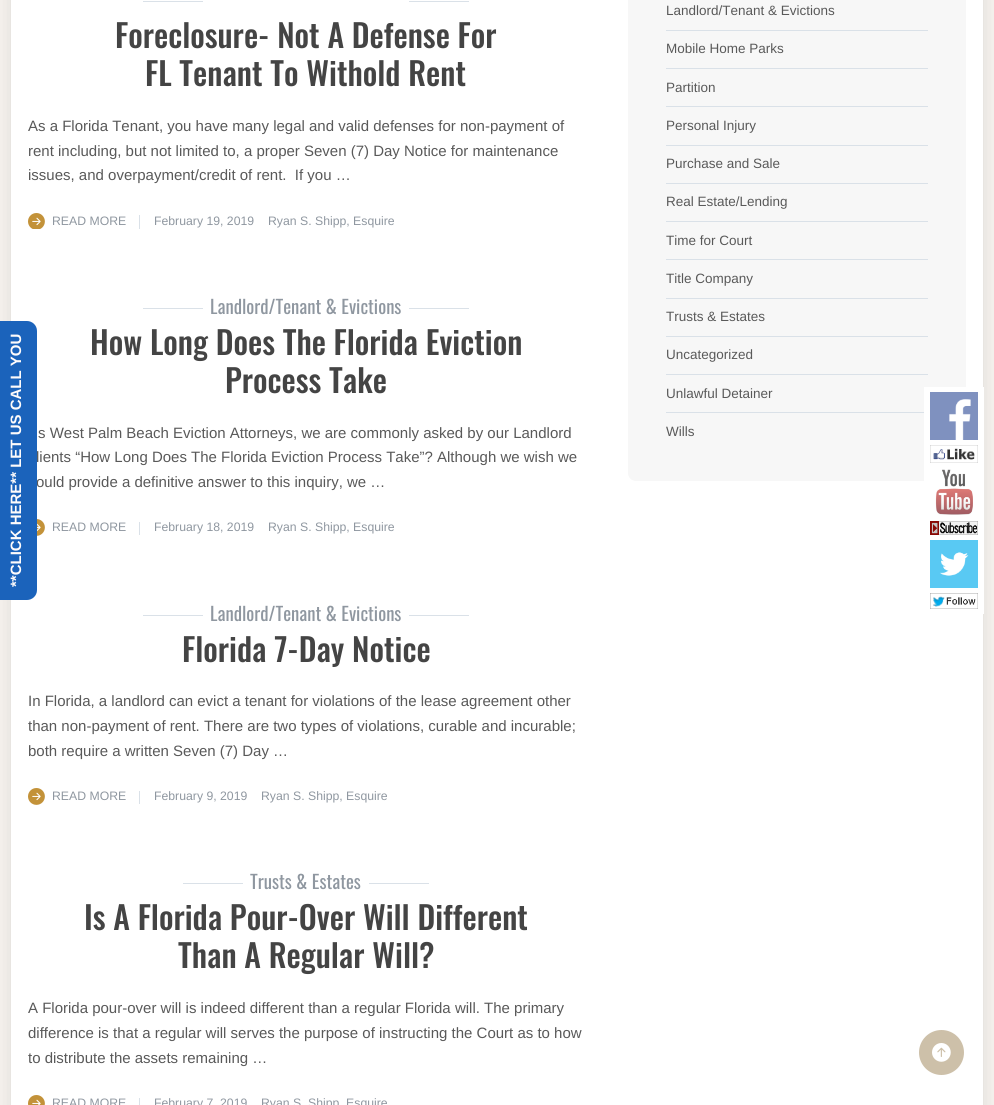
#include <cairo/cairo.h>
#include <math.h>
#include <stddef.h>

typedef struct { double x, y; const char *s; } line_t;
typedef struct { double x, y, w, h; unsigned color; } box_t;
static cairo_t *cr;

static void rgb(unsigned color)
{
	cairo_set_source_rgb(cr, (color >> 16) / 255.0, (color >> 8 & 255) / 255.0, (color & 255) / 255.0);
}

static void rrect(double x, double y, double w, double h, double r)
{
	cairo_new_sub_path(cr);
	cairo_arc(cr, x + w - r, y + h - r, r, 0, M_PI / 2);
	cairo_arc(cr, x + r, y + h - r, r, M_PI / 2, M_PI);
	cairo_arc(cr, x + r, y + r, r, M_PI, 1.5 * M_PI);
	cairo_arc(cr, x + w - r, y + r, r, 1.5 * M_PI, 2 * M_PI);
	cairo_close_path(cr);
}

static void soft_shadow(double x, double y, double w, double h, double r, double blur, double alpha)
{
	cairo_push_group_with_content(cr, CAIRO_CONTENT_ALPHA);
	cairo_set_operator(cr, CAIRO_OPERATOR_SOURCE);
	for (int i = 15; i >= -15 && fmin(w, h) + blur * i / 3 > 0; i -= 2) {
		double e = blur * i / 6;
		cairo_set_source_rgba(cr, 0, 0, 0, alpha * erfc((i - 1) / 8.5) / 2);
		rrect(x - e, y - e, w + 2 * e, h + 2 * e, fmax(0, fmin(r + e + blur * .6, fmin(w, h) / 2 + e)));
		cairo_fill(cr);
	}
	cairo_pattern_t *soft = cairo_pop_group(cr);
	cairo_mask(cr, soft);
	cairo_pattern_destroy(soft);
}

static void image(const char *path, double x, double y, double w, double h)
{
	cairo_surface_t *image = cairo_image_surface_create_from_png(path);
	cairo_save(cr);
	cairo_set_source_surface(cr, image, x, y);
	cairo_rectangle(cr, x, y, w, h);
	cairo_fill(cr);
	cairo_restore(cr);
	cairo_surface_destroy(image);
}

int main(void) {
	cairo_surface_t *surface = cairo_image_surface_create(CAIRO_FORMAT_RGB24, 994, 1105);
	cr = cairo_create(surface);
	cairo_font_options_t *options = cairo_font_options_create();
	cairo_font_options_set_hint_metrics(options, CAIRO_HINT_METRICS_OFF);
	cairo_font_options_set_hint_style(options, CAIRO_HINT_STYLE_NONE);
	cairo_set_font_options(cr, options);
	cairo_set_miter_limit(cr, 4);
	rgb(0xf6f2ee);
	cairo_paint(cr);
	rgb(0x000000);
	soft_shadow(20, -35, 954, 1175, 0, 11.5, 0.27);
	{
		static const box_t items[] = {
			{11, 0, 972, 1105, 0xffffff},
			{143, 1, 60, 1, 0xdae1e8},
			{409, 1, 60, 1, 0xdae1e8},
		};
		for (size_t i = 0; i < sizeof items / sizeof *items; i++) {
			rgb(items[i].color);
			cairo_rectangle(cr, items[i].x, items[i].y, items[i].w, items[i].h);
			cairo_fill(cr);
		}
	}
	image("img/1.png", 28, 213, 17, 16);
	{
		static const box_t items[] = {
			{139, 215, 1, 14, 0xdae1e8},
			{143, 308, 60, 1, 0xdae1e8},
			{409, 308, 60, 1, 0xdae1e8},
		};
		for (size_t i = 0; i < sizeof items / sizeof *items; i++) {
			rgb(items[i].color);
			cairo_rectangle(cr, items[i].x, items[i].y, items[i].w, items[i].h);
			cairo_fill(cr);
		}
	}
	image("img/2.png", 37, 519, 8, 17);
	{
		static const box_t items[] = {
			{139, 522, 1, 13, 0xdae1e8},
			{143, 615, 60, 1, 0xdae1e8},
			{409, 615, 60, 1, 0xdae1e8},
		};
		for (size_t i = 0; i < sizeof items / sizeof *items; i++) {
			rgb(items[i].color);
			cairo_rectangle(cr, items[i].x, items[i].y, items[i].w, items[i].h);
			cairo_fill(cr);
		}
	}
	image("img/3.png", 28, 788, 17, 17);
	{
		static const box_t items[] = {
			{139, 791, 1, 13, 0xdae1e8},
			{183, 883, 60, 1, 0xdae1e8},
			{369, 883, 60, 1, 0xdae1e8},
		};
		for (size_t i = 0; i < sizeof items / sizeof *items; i++) {
			rgb(items[i].color);
			cairo_rectangle(cr, items[i].x, items[i].y, items[i].w, items[i].h);
			cairo_fill(cr);
		}
	}
	image("img/4.png", 28, 1095, 17, 10);
	cairo_rectangle(cr, 139, 1098, 1, 7);
	cairo_fill(cr);
	rgb(0xf7f7f7);
	rrect(628, -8, 338, 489, 8);
	cairo_fill(cr);
	{
		static const box_t items[] = {
			{666, 30, 262, 1, 0xdae1e8},
			{666, 68, 262, 1, 0xdae1e8},
			{666, 106, 262, 1, 0xdae1e8},
			{666, 145, 262, 1, 0xdae1e8},
			{666, 183, 262, 1, 0xdae1e8},
			{666, 221, 262, 1, 0xdae1e8},
			{666, 259, 262, 1, 0xdae1e8},
			{666, 298, 262, 1, 0xdae1e8},
			{666, 336, 262, 1, 0xdae1e8},
			{666, 374, 262, 1, 0xdae1e8},
			{666, 412, 262, 1, 0xdae1e8},
			{924, 387, 60, 227, 0xffffff},
		};
		for (size_t i = 0; i < sizeof items / sizeof *items; i++) {
			rgb(items[i].color);
			cairo_rectangle(cr, items[i].x, items[i].y, items[i].w, items[i].h);
			cairo_fill(cr);
		}
	}
	image("img/5.png", 930, 392, 48, 48);
	image("img/6.png", 930, 445, 48, 18);
	image("img/7.png", 935, 469, 38, 46);
	image("img/8.png", 930, 521, 48, 14);
	image("img/9.png", 930, 540, 48, 48);
	image("img/10.png", 930, 593, 48, 16);
	rgb(0xcdc0a9);
	cairo_arc(cr, 941.5, 1052.5, 22.5, 0, 2 * M_PI);
	cairo_fill(cr);
	image("img/11.png", 932, 1043, 19, 19);
	cairo_select_font_face(cr, "Oswald Medium", CAIRO_FONT_SLANT_NORMAL, CAIRO_FONT_WEIGHT_NORMAL);
	cairo_set_font_size(cr, 31.9);
	rgb(0x444444);
	cairo_move_to(cr, 115, 48);
	cairo_show_text(cr, "Foreclosure- Not A Defense For");
	cairo_move_to(cr, 145, 86);
	cairo_show_text(cr, "FL Tenant To Withold Rent");
	cairo_select_font_face(cr, "Liberation Sans", CAIRO_FONT_SLANT_NORMAL, CAIRO_FONT_WEIGHT_NORMAL);
	cairo_set_font_size(cr, 15);
	rgb(0x595959);
	{
		static const line_t items[] = {
			{28, 131, "As a Florida Tenant, you have many legal and valid defenses for non-payment of"},
			{28, 156, "rent including, but not limited to, a proper Seven (7) Day Notice for maintenance"},
			{28, 180, "issues, and overpayment/credit of rent.  If you …"},
		};
		for (size_t i = 0; i < sizeof items / sizeof *items; i++) {
			cairo_move_to(cr, items[i].x, items[i].y);
			cairo_show_text(cr, items[i].s);
		}
	}
	cairo_set_font_size(cr, 12.25);
	rgb(0x8f97a0);
	{
		static const line_t items[] = {
			{52, 225, "READ MORE"},
			{154, 225, "February 19, 2019"},
			{268, 225, "Ryan S. Shipp, Esquire"},
		};
		for (size_t i = 0; i < sizeof items / sizeof *items; i++) {
			cairo_move_to(cr, items[i].x, items[i].y);
			cairo_show_text(cr, items[i].s);
		}
	}
	cairo_select_font_face(cr, "Oswald", CAIRO_FONT_SLANT_NORMAL, CAIRO_FONT_WEIGHT_NORMAL);
	cairo_set_font_size(cr, 18.75);
	cairo_move_to(cr, 210, 314);
	cairo_show_text(cr, "Landlord/Tenant & Evictions");
	cairo_select_font_face(cr, "Oswald Medium", CAIRO_FONT_SLANT_NORMAL, CAIRO_FONT_WEIGHT_NORMAL);
	cairo_set_font_size(cr, 31.9);
	rgb(0x444444);
	cairo_move_to(cr, 90, 355);
	cairo_show_text(cr, "How Long Does The Florida Eviction");
	cairo_move_to(cr, 225, 393);
	cairo_show_text(cr, "Process Take");
	cairo_select_font_face(cr, "Liberation Sans", CAIRO_FONT_SLANT_NORMAL, CAIRO_FONT_WEIGHT_NORMAL);
	cairo_set_font_size(cr, 15);
	rgb(0x595959);
	{
		static const line_t items[] = {
			{38, 438, "s West Palm Beach Eviction Attorneys, we are commonly asked by our Landlord"},
			{36, 462, "lients “How Long Does The Florida Eviction Process Take”? Although we wish we"},
			{36, 487, "ould provide a definitive answer to this inquiry, we …"},
		};
		for (size_t i = 0; i < sizeof items / sizeof *items; i++) {
			cairo_move_to(cr, items[i].x, items[i].y);
			cairo_show_text(cr, items[i].s);
		}
	}
	rgb(0x1b63bb);
	cairo_new_path(cr);
	cairo_move_to(cr, -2, 600);
	cairo_line_to(cr, -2, 321);
	cairo_line_to(cr, 27, 321);
	cairo_curve_to(cr, 32, 321, 37, 325, 37, 331);
	cairo_line_to(cr, 37, 590);
	cairo_curve_to(cr, 37, 596, 32, 600, 27, 600);
	cairo_close_path(cr);
	cairo_fill(cr);
	cairo_select_font_face(cr, "Liberation Sans", CAIRO_FONT_SLANT_NORMAL, CAIRO_FONT_WEIGHT_BOLD);
	rgb(0xfefbfb);
	cairo_save(cr);
	cairo_translate(cr, 21, 587);
	cairo_rotate(cr, -90 * M_PI / 180);
	cairo_move_to(cr, 0, 0);
	cairo_show_text(cr, "**CLICK HERE** LET US CALL YOU");
	cairo_restore(cr);
	cairo_select_font_face(cr, "Liberation Sans", CAIRO_FONT_SLANT_NORMAL, CAIRO_FONT_WEIGHT_NORMAL);
	cairo_set_font_size(cr, 12.25);
	rgb(0x8f97a0);
	{
		static const line_t items[] = {
			{52, 531, "READ MORE"},
			{154, 531, "February 18, 2019"},
			{268, 531, "Ryan S. Shipp, Esquire"},
		};
		for (size_t i = 0; i < sizeof items / sizeof *items; i++) {
			cairo_move_to(cr, items[i].x, items[i].y);
			cairo_show_text(cr, items[i].s);
		}
	}
	cairo_select_font_face(cr, "Oswald", CAIRO_FONT_SLANT_NORMAL, CAIRO_FONT_WEIGHT_NORMAL);
	cairo_set_font_size(cr, 18.75);
	cairo_move_to(cr, 210, 621);
	cairo_show_text(cr, "Landlord/Tenant & Evictions");
	cairo_select_font_face(cr, "Oswald Medium", CAIRO_FONT_SLANT_NORMAL, CAIRO_FONT_WEIGHT_NORMAL);
	cairo_set_font_size(cr, 31.9);
	rgb(0x444444);
	cairo_move_to(cr, 182, 662);
	cairo_show_text(cr, "Florida 7-Day Notice");
	cairo_select_font_face(cr, "Liberation Sans", CAIRO_FONT_SLANT_NORMAL, CAIRO_FONT_WEIGHT_NORMAL);
	cairo_set_font_size(cr, 15);
	rgb(0x595959);
	{
		static const line_t items[] = {
			{28, 706, "In Florida, a landlord can evict a tenant for violations of the lease agreement other"},
			{28, 731, "than non-payment of rent. There are two types of violations, curable and incurable;"},
			{28, 756, "both require a written Seven (7) Day …"},
		};
		for (size_t i = 0; i < sizeof items / sizeof *items; i++) {
			cairo_move_to(cr, items[i].x, items[i].y);
			cairo_show_text(cr, items[i].s);
		}
	}
	cairo_set_font_size(cr, 12.25);
	rgb(0x8f97a0);
	{
		static const line_t items[] = {
			{52, 800, "READ MORE"},
			{154, 800, "February 9, 2019"},
			{261, 800, "Ryan S. Shipp, Esquire"},
		};
		for (size_t i = 0; i < sizeof items / sizeof *items; i++) {
			cairo_move_to(cr, items[i].x, items[i].y);
			cairo_show_text(cr, items[i].s);
		}
	}
	cairo_select_font_face(cr, "Oswald", CAIRO_FONT_SLANT_NORMAL, CAIRO_FONT_WEIGHT_NORMAL);
	cairo_set_font_size(cr, 18.75);
	cairo_move_to(cr, 250, 889);
	cairo_show_text(cr, "Trusts & Estates");
	cairo_select_font_face(cr, "Oswald Medium", CAIRO_FONT_SLANT_NORMAL, CAIRO_FONT_WEIGHT_NORMAL);
	cairo_set_font_size(cr, 31.9);
	rgb(0x444444);
	cairo_move_to(cr, 84, 930);
	cairo_show_text(cr, "Is A Florida Pour-Over Will Different");
	cairo_move_to(cr, 178, 968);
	cairo_show_text(cr, "Than A Regular Will?");
	cairo_select_font_face(cr, "Liberation Sans", CAIRO_FONT_SLANT_NORMAL, CAIRO_FONT_WEIGHT_NORMAL);
	cairo_set_font_size(cr, 15);
	rgb(0x595959);
	{
		static const line_t items[] = {
			{28, 1013, "A Florida pour-over will is indeed different than a regular Florida will. The primary"},
			{28, 1038, "difference is that a regular will serves the purpose of instructing the Court as to how"},
			{28, 1063, "to distribute the assets remaining …"},
		};
		for (size_t i = 0; i < sizeof items / sizeof *items; i++) {
			cairo_move_to(cr, items[i].x, items[i].y);
			cairo_show_text(cr, items[i].s);
		}
	}
	cairo_set_font_size(cr, 12.25);
	rgb(0x8f97a0);
	{
		static const line_t items[] = {
			{52, 1107, "READ MORE"},
			{154, 1107, "February 7, 2019"},
			{261, 1107, "Ryan S. Shipp, Esquire"},
		};
		for (size_t i = 0; i < sizeof items / sizeof *items; i++) {
			cairo_move_to(cr, items[i].x, items[i].y);
			cairo_show_text(cr, items[i].s);
		}
	}
	cairo_set_font_size(cr, 13.5);
	rgb(0x595959);
	{
		static const line_t items[] = {
			{666, 15, "Landlord/Tenant & Evictions"},
			{666, 53, "Mobile Home Parks"},
			{666, 92, "Partition"},
			{666, 130, "Personal Injury"},
			{666, 168, "Purchase and Sale"},
			{666, 206, "Real Estate/Lending"},
			{666, 245, "Time for Court"},
			{666, 283, "Title Company"},
			{666, 321, "Trusts & Estates"},
			{666, 359, "Uncategorized"},
			{666, 398, "Unlawful Detainer"},
			{666, 436, "Wills"},
		};
		for (size_t i = 0; i < sizeof items / sizeof *items; i++) {
			cairo_move_to(cr, items[i].x, items[i].y);
			cairo_show_text(cr, items[i].s);
		}
	}
	cairo_surface_write_to_png(surface, "page.png");
	cairo_font_options_destroy(options);
	cairo_destroy(cr);
	cairo_surface_destroy(surface);
	return 0;
}
